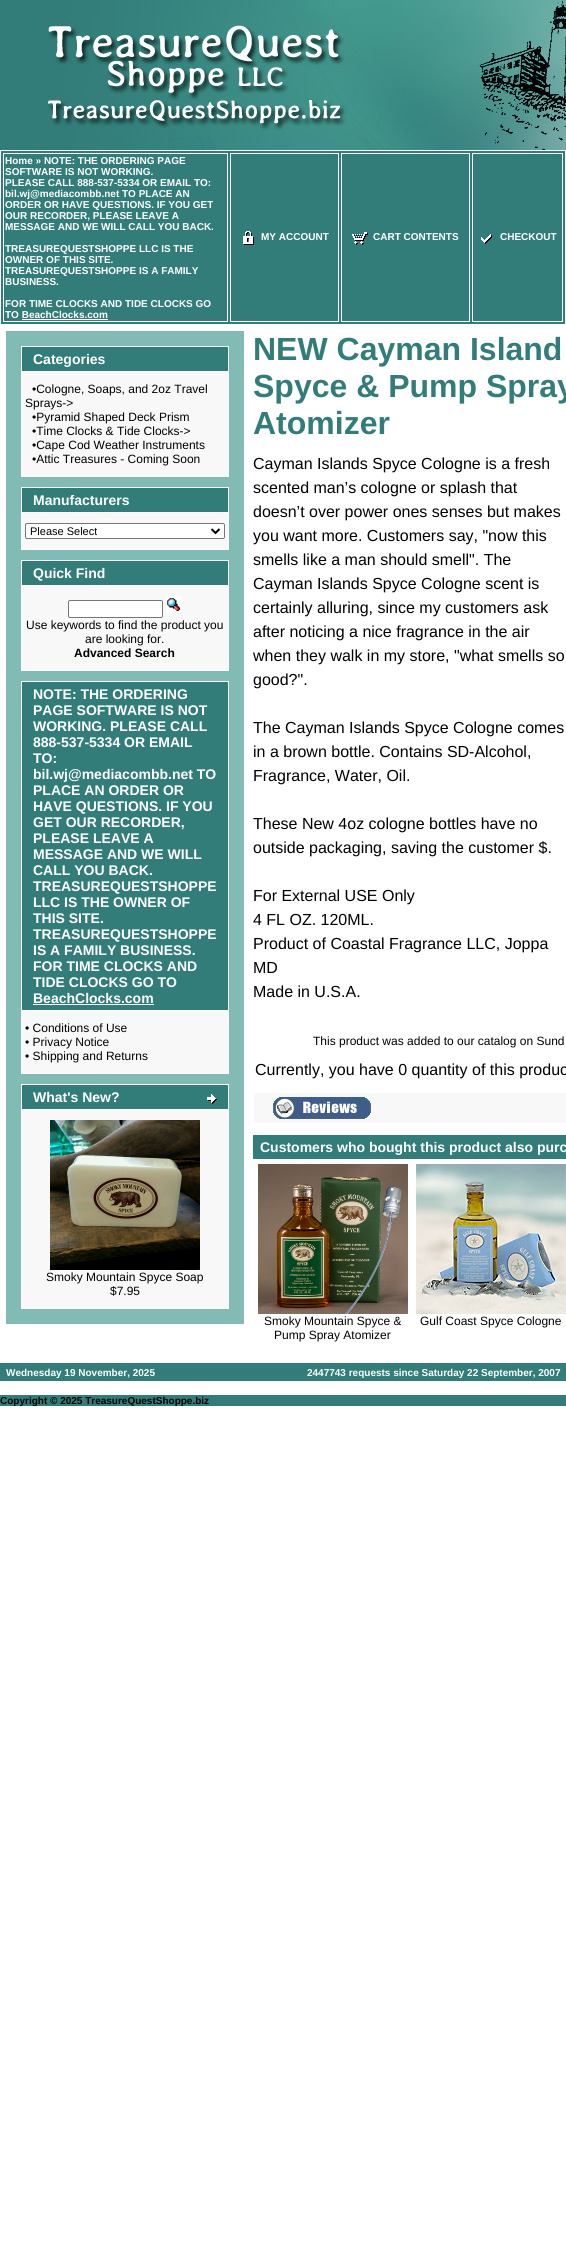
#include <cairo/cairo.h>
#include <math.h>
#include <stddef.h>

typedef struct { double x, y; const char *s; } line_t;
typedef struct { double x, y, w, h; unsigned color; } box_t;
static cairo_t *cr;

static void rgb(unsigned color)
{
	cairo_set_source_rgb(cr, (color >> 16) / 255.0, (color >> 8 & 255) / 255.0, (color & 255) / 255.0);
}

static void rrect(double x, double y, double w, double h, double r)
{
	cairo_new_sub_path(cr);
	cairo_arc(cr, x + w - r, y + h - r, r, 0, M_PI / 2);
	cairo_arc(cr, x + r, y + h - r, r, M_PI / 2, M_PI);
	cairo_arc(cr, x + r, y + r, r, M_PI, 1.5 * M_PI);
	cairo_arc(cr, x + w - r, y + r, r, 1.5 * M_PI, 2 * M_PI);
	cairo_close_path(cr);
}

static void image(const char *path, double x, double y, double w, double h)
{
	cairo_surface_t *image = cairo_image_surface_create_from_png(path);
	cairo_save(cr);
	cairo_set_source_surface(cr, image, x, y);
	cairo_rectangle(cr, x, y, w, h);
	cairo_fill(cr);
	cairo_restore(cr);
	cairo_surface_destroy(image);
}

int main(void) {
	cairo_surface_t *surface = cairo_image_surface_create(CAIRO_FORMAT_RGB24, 566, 2255);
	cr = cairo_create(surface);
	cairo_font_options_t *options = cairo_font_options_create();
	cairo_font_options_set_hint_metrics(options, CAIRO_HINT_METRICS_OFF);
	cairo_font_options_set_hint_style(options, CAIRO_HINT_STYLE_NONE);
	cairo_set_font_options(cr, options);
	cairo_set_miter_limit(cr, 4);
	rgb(0xffffff);
	cairo_paint(cr);
	rgb(0x327d79);
	cairo_rectangle(cr, 0, 0, 48, 150);
	cairo_fill(cr);
	image("img/1.png", 48, 0, 518, 150);
	cairo_rectangle(cr, 1, 151, 564, 173);
	cairo_fill(cr);
	cairo_rectangle(cr, 3.5, 153.5, 224, 168);
	rgb(0xffffff);
	cairo_set_line_width(cr, 1);
	cairo_stroke(cr);
	cairo_rectangle(cr, 22, 319, 86, 1);
	cairo_fill(cr);
	cairo_rectangle(cr, 230.5, 153.5, 108, 168);
	cairo_stroke(cr);
	image("img/2.png", 243, 231, 11, 14);
	cairo_rectangle(cr, 341.5, 153.5, 128, 168);
	cairo_stroke(cr);
	image("img/3.png", 352, 232, 16, 13);
	cairo_rectangle(cr, 472.5, 153.5, 90, 168);
	cairo_stroke(cr);
	image("img/4.png", 481, 234, 11, 10);
	{
		static const box_t items[] = {
			{6, 331, 238, 993, 0x82bbb4},
			{22, 347, 206, 24, 0x327d79},
			{21, 346, 208, 1, 0xffffff},
			{21, 346, 1, 25, 0xffffff},
			{228, 346, 1, 25, 0xffffff},
			{21, 371, 208, 106, 0xffffff},
			{22, 372, 206, 104, 0xf8f8f9},
			{22, 488, 206, 24, 0x327d79},
			{21, 487, 208, 1, 0xffffff},
			{21, 487, 1, 25, 0xffffff},
			{228, 487, 1, 25, 0xffffff},
			{21, 512, 208, 38, 0xffffff},
			{22, 513, 206, 36, 0xf8f8f9},
		};
		for (size_t i = 0; i < sizeof items / sizeof *items; i++) {
			rgb(items[i].color);
			cairo_rectangle(cr, items[i].x, items[i].y, items[i].w, items[i].h);
			cairo_fill(cr);
		}
	}
	rgb(0xffffff);
	rrect(25.5, 523.5, 199, 15, 1.5);
	cairo_fill_preserve(cr);
	rgb(0x767676);
	cairo_stroke(cr);
	cairo_new_path(cr);
	cairo_move_to(cr, 211.5, 529);
	cairo_line_to(cr, 215.5, 533);
	cairo_line_to(cr, 219.5, 529);
	rgb(0x000000);
	cairo_set_line_width(cr, 2);
	cairo_stroke(cr);
	{
		static const box_t items[] = {
			{22, 561, 206, 24, 0x327d79},
			{21, 560, 208, 1, 0xffffff},
			{21, 560, 1, 25, 0xffffff},
			{228, 560, 1, 25, 0xffffff},
			{21, 585, 208, 86, 0xffffff},
			{22, 586, 206, 84, 0xf8f8f9},
		};
		for (size_t i = 0; i < sizeof items / sizeof *items; i++) {
			rgb(items[i].color);
			cairo_rectangle(cr, items[i].x, items[i].y, items[i].w, items[i].h);
			cairo_fill(cr);
		}
	}
	rgb(0xffffff);
	rrect(68.5, 600.5, 94, 17, 1.5);
	cairo_fill_preserve(cr);
	rgb(0x767676);
	cairo_set_line_width(cr, 1);
	cairo_stroke(cr);
	image("img/5.png", 166, 596, 16, 17);
	{
		static const box_t items[] = {
			{22, 682, 206, 328, 0x327d79},
			{21, 681, 208, 1, 0xffffff},
			{21, 681, 1, 329, 0xffffff},
			{33, 1004, 121, 1, 0xffffff},
			{228, 681, 1, 329, 0xffffff},
			{21, 1010, 208, 64, 0xffffff},
			{22, 1011, 206, 62, 0xf8f8f9},
			{22, 1085, 206, 24, 0x327d79},
			{21, 1084, 208, 1, 0xffffff},
			{21, 1084, 1, 25, 0xffffff},
			{228, 1084, 1, 25, 0xffffff},
		};
		for (size_t i = 0; i < sizeof items / sizeof *items; i++) {
			rgb(items[i].color);
			cairo_rectangle(cr, items[i].x, items[i].y, items[i].w, items[i].h);
			cairo_fill(cr);
		}
	}
	image("img/6.png", 207, 1094, 10, 10);
	cairo_rectangle(cr, 21, 1109, 208, 200);
	cairo_fill(cr);
	rgb(0xf8f8f9);
	cairo_rectangle(cr, 22, 1110, 206, 198);
	cairo_fill(cr);
	image("img/7.png", 50, 1120, 150, 150);
	cairo_rectangle(cr, 254, 1093, 312, 30);
	cairo_fill(cr);
	image("img/8.png", 273, 1097, 98, 22);
	{
		static const box_t items[] = {
			{253, 1134, 7, 25, 0x327d79},
			{253, 1134, 7, 1, 0xffffff},
			{260, 1135, 306, 24, 0x327d79},
		};
		for (size_t i = 0; i < sizeof items / sizeof *items; i++) {
			rgb(items[i].color);
			cairo_rectangle(cr, items[i].x, items[i].y, items[i].w, items[i].h);
			cairo_fill(cr);
		}
	}
	image("img/9.png", 258, 1164, 150, 150);
	image("img/10.png", 416, 1164, 150, 150);
	cairo_rectangle(cr, 0, 1363, 566, 18);
	cairo_fill(cr);
	cairo_rectangle(cr, 0, 1395, 566, 11);
	cairo_fill(cr);
	cairo_select_font_face(cr, "Liberation Sans", CAIRO_FONT_SLANT_NORMAL, CAIRO_FONT_WEIGHT_BOLD);
	cairo_set_font_size(cr, 10);
	rgb(0xffffff);
	{
		static const line_t items[] = {
			{5, 164, "Home » NOTE: THE ORDERING PAGE"},
			{5, 175, "SOFTWARE IS NOT WORKING."},
			{5, 186, "PLEASE CALL 888-537-5334 OR EMAIL TO:"},
			{5, 197, "bil.wj@mediacombb.net TO PLACE AN"},
			{5, 208, "ORDER OR HAVE QUESTIONS. IF YOU GET"},
			{5, 219, "OUR RECORDER, PLEASE LEAVE A"},
			{5, 230, "MESSAGE AND WE WILL CALL YOU BACK."},
			{5, 252, "TREASUREQUESTSHOPPE LLC IS THE"},
			{5, 263, "OWNER OF THIS SITE."},
			{5, 274, "TREASUREQUESTSHOPPE IS A FAMILY"},
			{5, 285, "BUSINESS."},
			{5, 307, "FOR TIME CLOCKS AND TIDE CLOCKS GO"},
			{5, 318, "TO BeachClocks.com"},
			{261, 240, "MY ACCOUNT"},
			{373, 240, "CART CONTENTS"},
			{500, 240, "CHECKOUT"},
		};
		for (size_t i = 0; i < sizeof items / sizeof *items; i++) {
			cairo_move_to(cr, items[i].x, items[i].y);
			cairo_show_text(cr, items[i].s);
		}
	}
	cairo_set_font_size(cr, 14);
	cairo_move_to(cr, 33, 364);
	cairo_show_text(cr, "Categories");
	cairo_select_font_face(cr, "Liberation Sans", CAIRO_FONT_SLANT_NORMAL, CAIRO_FONT_WEIGHT_NORMAL);
	cairo_set_font_size(cr, 12);
	rgb(0x000000);
	{
		static const line_t items[] = {
			{32, 393, "•Cologne, Soaps, and 2oz Travel"},
			{25, 407, "Sprays->"},
			{32, 421, "•Pyramid Shaped Deck Prism"},
			{32, 435, "•Time Clocks & Tide Clocks->"},
			{32, 449, "•Cape Cod Weather Instruments"},
			{32, 463, "•Attic Treasures - Coming Soon"},
		};
		for (size_t i = 0; i < sizeof items / sizeof *items; i++) {
			cairo_move_to(cr, items[i].x, items[i].y);
			cairo_show_text(cr, items[i].s);
		}
	}
	cairo_select_font_face(cr, "Liberation Sans", CAIRO_FONT_SLANT_NORMAL, CAIRO_FONT_WEIGHT_BOLD);
	cairo_set_font_size(cr, 14);
	rgb(0xffffff);
	cairo_move_to(cr, 33, 505);
	cairo_show_text(cr, "Manufacturers");
	cairo_select_font_face(cr, "Liberation Sans", CAIRO_FONT_SLANT_NORMAL, CAIRO_FONT_WEIGHT_NORMAL);
	cairo_set_font_size(cr, 11);
	rgb(0x000000);
	cairo_move_to(cr, 30, 535);
	cairo_show_text(cr, "Please Select");
	cairo_select_font_face(cr, "Liberation Sans", CAIRO_FONT_SLANT_NORMAL, CAIRO_FONT_WEIGHT_BOLD);
	cairo_set_font_size(cr, 14);
	rgb(0xffffff);
	cairo_move_to(cr, 33, 578);
	cairo_show_text(cr, "Quick Find");
	cairo_select_font_face(cr, "Liberation Sans", CAIRO_FONT_SLANT_NORMAL, CAIRO_FONT_WEIGHT_NORMAL);
	cairo_set_font_size(cr, 12);
	rgb(0x000000);
	cairo_move_to(cr, 26, 629);
	cairo_show_text(cr, "Use keywords to find the product you");
	cairo_move_to(cr, 85, 643);
	cairo_show_text(cr, "are looking for.");
	cairo_select_font_face(cr, "Liberation Sans", CAIRO_FONT_SLANT_NORMAL, CAIRO_FONT_WEIGHT_BOLD);
	cairo_move_to(cr, 74, 657);
	cairo_show_text(cr, "Advanced Search");
	cairo_set_font_size(cr, 14);
	rgb(0xffffff);
	{
		static const line_t items[] = {
			{33, 699, "NOTE: THE ORDERING"},
			{33, 715, "PAGE SOFTWARE IS NOT"},
			{33, 731, "WORKING. PLEASE CALL"},
			{33, 747, "888-537-5334 OR EMAIL"},
			{33, 763, "TO:"},
			{33, 779, "bil.wj@mediacombb.net TO"},
			{33, 795, "PLACE AN ORDER OR"},
			{33, 811, "HAVE QUESTIONS. IF YOU"},
			{33, 827, "GET OUR RECORDER,"},
			{33, 843, "PLEASE LEAVE A"},
			{33, 859, "MESSAGE AND WE WILL"},
			{33, 875, "CALL YOU BACK."},
			{33, 891, "TREASUREQUESTSHOPPE"},
			{33, 907, "LLC IS THE OWNER OF"},
			{33, 923, "THIS SITE."},
			{33, 939, "TREASUREQUESTSHOPPE"},
			{33, 955, "IS A FAMILY BUSINESS."},
			{33, 971, "FOR TIME CLOCKS AND"},
			{33, 987, "TIDE CLOCKS GO TO"},
			{33, 1003, "BeachClocks.com"},
		};
		for (size_t i = 0; i < sizeof items / sizeof *items; i++) {
			cairo_move_to(cr, items[i].x, items[i].y);
			cairo_show_text(cr, items[i].s);
		}
	}
	cairo_select_font_face(cr, "Liberation Sans", CAIRO_FONT_SLANT_NORMAL, CAIRO_FONT_WEIGHT_NORMAL);
	cairo_set_font_size(cr, 12);
	rgb(0x000000);
	{
		static const line_t items[] = {
			{25, 1032, "• Conditions of Use"},
			{25, 1046, "• Privacy Notice"},
			{25, 1060, "• Shipping and Returns"},
		};
		for (size_t i = 0; i < sizeof items / sizeof *items; i++) {
			cairo_move_to(cr, items[i].x, items[i].y);
			cairo_show_text(cr, items[i].s);
		}
	}
	cairo_select_font_face(cr, "Liberation Sans", CAIRO_FONT_SLANT_NORMAL, CAIRO_FONT_WEIGHT_BOLD);
	cairo_set_font_size(cr, 14);
	rgb(0xffffff);
	cairo_move_to(cr, 33, 1102);
	cairo_show_text(cr, "What's New?");
	cairo_select_font_face(cr, "Liberation Sans", CAIRO_FONT_SLANT_NORMAL, CAIRO_FONT_WEIGHT_NORMAL);
	cairo_set_font_size(cr, 12);
	rgb(0x000000);
	cairo_move_to(cr, 46, 1281);
	cairo_show_text(cr, "Smoky Mountain Spyce Soap");
	cairo_move_to(cr, 110, 1295);
	cairo_show_text(cr, "$7.95");
	cairo_select_font_face(cr, "Liberation Sans", CAIRO_FONT_SLANT_NORMAL, CAIRO_FONT_WEIGHT_BOLD);
	cairo_set_font_size(cr, 32);
	rgb(0x327d79);
	{
		static const line_t items[] = {
			{253, 360, "NEW Cayman Island"},
			{253, 397, "Spyce & Pump Spray"},
			{253, 434, "Atomizer"},
		};
		for (size_t i = 0; i < sizeof items / sizeof *items; i++) {
			cairo_move_to(cr, items[i].x, items[i].y);
			cairo_show_text(cr, items[i].s);
		}
	}
	cairo_select_font_face(cr, "Liberation Sans", CAIRO_FONT_SLANT_NORMAL, CAIRO_FONT_WEIGHT_NORMAL);
	cairo_set_font_size(cr, 16);
	rgb(0x000000);
	{
		static const line_t items[] = {
			{253, 469, "Cayman Islands Spyce Cologne is a fresh"},
			{253, 493, "scented man’s cologne or splash that"},
			{253, 517, "doesn’t over power ones senses but makes"},
			{253, 541, "you want more. Customers say, \"now this"},
			{253, 565, "smells like a man should smell\". The"},
			{253, 589, "Cayman Islands Spyce Cologne scent is"},
			{253, 613, "certainly alluring, since my customers ask"},
			{253, 637, "after noticing a nice fragrance in the air"},
			{253, 661, "when they walk in my store, \"what smells so"},
			{253, 685, "good?\"."},
			{253, 733, "The Cayman Islands Spyce Cologne comes"},
			{253, 757, "in a brown bottle. Contains SD-Alcohol,"},
			{253, 781, "Fragrance, Water, Oil."},
			{253, 829, "These New 4oz cologne bottles have no"},
			{253, 853, "outside packaging, saving the customer $."},
			{253, 901, "For External USE Only"},
			{253, 925, "4 FL OZ. 120ML."},
			{253, 949, "Product of Coastal Fragrance LLC, Joppa"},
			{253, 973, "MD"},
			{253, 997, "Made in U.S.A."},
		};
		for (size_t i = 0; i < sizeof items / sizeof *items; i++) {
			cairo_move_to(cr, items[i].x, items[i].y);
			cairo_show_text(cr, items[i].s);
		}
	}
	cairo_set_font_size(cr, 12);
	cairo_move_to(cr, 313, 1045);
	cairo_show_text(cr, "This product was added to our catalog on Sund");
	cairo_set_font_size(cr, 16);
	cairo_move_to(cr, 255, 1075);
	cairo_show_text(cr, "Currently, you have 0 quantity of this produc");
	cairo_select_font_face(cr, "Liberation Sans", CAIRO_FONT_SLANT_NORMAL, CAIRO_FONT_WEIGHT_BOLD);
	cairo_set_font_size(cr, 14);
	rgb(0xffffff);
	cairo_move_to(cr, 260, 1152);
	cairo_show_text(cr, "Customers who bought this product also purc");
	cairo_select_font_face(cr, "Liberation Sans", CAIRO_FONT_SLANT_NORMAL, CAIRO_FONT_WEIGHT_NORMAL);
	cairo_set_font_size(cr, 12);
	rgb(0x000000);
	{
		static const line_t items[] = {
			{264, 1325, "Smoky Mountain Spyce &"},
			{274, 1339, "Pump Spray Atomizer"},
			{420, 1325, "Gulf Coast Spyce Cologne"},
		};
		for (size_t i = 0; i < sizeof items / sizeof *items; i++) {
			cairo_move_to(cr, items[i].x, items[i].y);
			cairo_show_text(cr, items[i].s);
		}
	}
	cairo_select_font_face(cr, "Liberation Sans", CAIRO_FONT_SLANT_NORMAL, CAIRO_FONT_WEIGHT_BOLD);
	cairo_set_font_size(cr, 10);
	rgb(0xffffff);
	cairo_move_to(cr, 6, 1376);
	cairo_show_text(cr, "Wednesday 19 November, 2025");
	cairo_move_to(cr, 307, 1376);
	cairo_show_text(cr, "2447743 requests since Saturday 22 September, 2007");
	rgb(0x000000);
	cairo_move_to(cr, 0, 1404);
	cairo_show_text(cr, "Copyright © 2025 TreasureQuestShoppe.biz");
	cairo_surface_write_to_png(surface, "page.png");
	cairo_font_options_destroy(options);
	cairo_destroy(cr);
	cairo_surface_destroy(surface);
	return 0;
}
